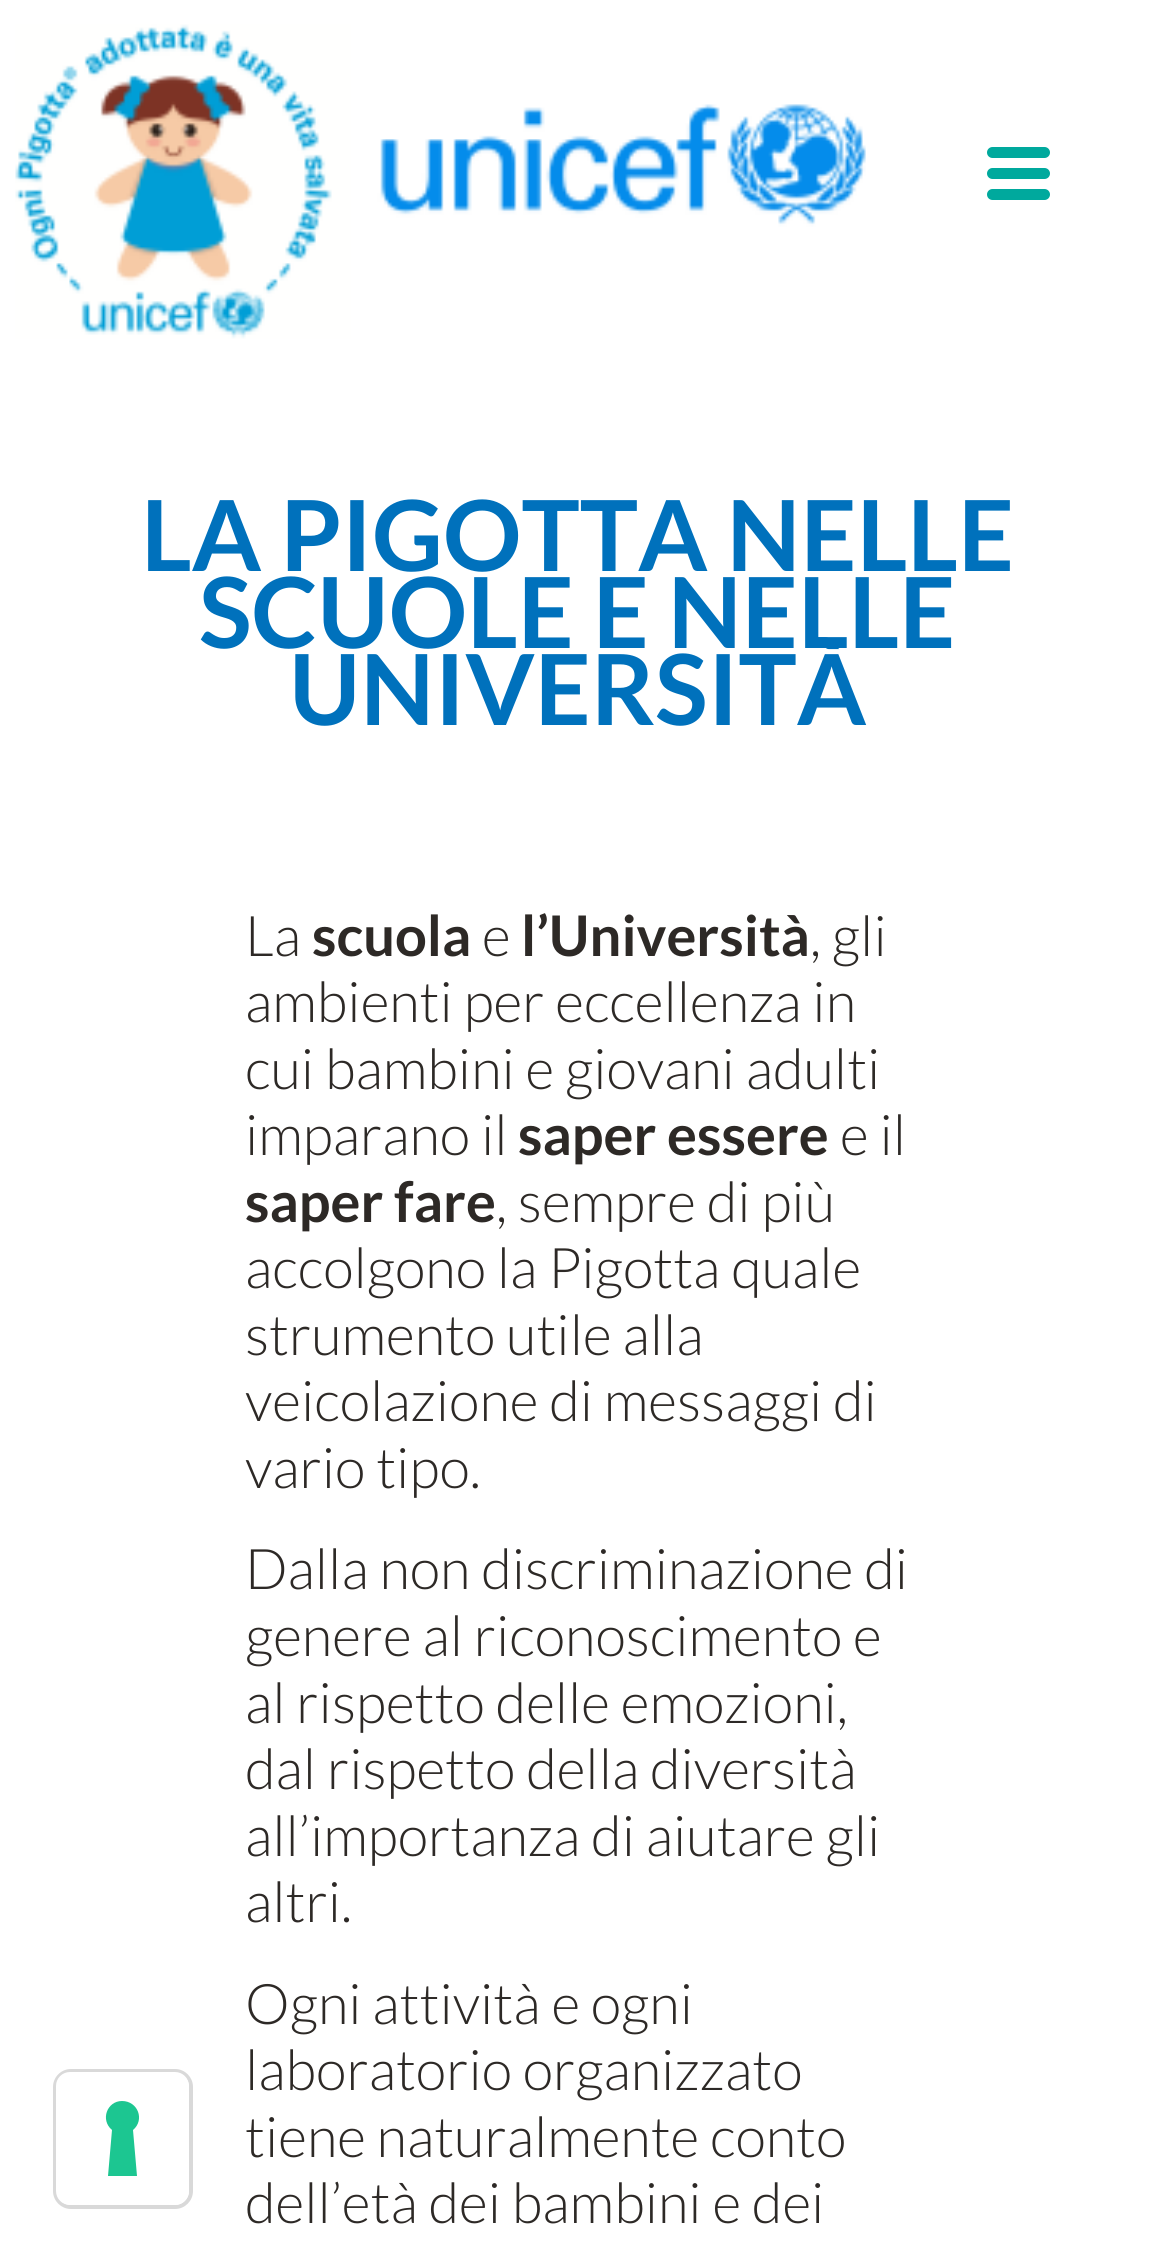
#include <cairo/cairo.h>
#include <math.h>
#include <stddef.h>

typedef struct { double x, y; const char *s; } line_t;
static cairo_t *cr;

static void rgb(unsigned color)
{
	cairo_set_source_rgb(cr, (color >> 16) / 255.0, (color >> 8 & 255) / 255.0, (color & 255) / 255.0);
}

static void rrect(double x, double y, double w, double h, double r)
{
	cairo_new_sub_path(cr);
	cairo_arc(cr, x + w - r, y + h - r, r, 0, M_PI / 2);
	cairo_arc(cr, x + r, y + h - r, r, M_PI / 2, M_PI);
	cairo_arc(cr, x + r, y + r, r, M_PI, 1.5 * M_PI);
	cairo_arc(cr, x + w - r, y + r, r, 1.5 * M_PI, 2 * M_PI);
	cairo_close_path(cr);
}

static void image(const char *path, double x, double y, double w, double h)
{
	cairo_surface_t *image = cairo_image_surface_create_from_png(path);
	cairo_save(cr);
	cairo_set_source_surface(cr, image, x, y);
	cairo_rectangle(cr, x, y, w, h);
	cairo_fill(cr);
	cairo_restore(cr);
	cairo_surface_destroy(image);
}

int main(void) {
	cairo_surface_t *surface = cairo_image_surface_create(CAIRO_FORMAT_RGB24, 1152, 2259);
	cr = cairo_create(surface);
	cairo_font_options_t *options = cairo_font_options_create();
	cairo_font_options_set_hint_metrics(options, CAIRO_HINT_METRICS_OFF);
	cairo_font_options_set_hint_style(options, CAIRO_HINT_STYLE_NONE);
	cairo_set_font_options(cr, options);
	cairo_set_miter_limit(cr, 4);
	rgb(0xffffff);
	cairo_paint(cr);
	rrect(55, 2071, 136, 136, 16);
	rgb(0xd9d9d9);
	cairo_set_line_width(cr, 4);
	cairo_stroke(cr);
	rgb(0xffffff);
	rrect(56, 2072, 133, 133, 14);
	cairo_fill(cr);
	rgb(0x1cc691);
	cairo_set_fill_rule(cr, CAIRO_FILL_RULE_EVEN_ODD);
	cairo_new_path(cr);
	cairo_move_to(cr, 122, 2101);
	cairo_curve_to(cr, 138, 2101, 145, 2120, 133, 2130);
	cairo_line_to(cr, 137, 2176);
	cairo_line_to(cr, 108, 2176);
	cairo_line_to(cr, 112, 2130);
	cairo_curve_to(cr, 100, 2120, 107, 2101, 122, 2101);
	cairo_close_path(cr);
	cairo_fill(cr);
	image("img/1.png", 15, 24, 851, 315);
	rgb(0x00a99d);
	rrect(987, 147, 63, 11, 5.5);
	cairo_fill(cr);
	rrect(987, 168, 63, 11, 5.5);
	cairo_fill(cr);
	rrect(987, 189, 63, 11, 5.5);
	cairo_fill(cr);
	cairo_select_font_face(cr, "Lato", CAIRO_FONT_SLANT_NORMAL, CAIRO_FONT_WEIGHT_BOLD);
	cairo_set_font_size(cr, 98);
	rgb(0x0071bc);
	{
		static const line_t items[] = {
			{141, 571, "LA PIGOTTA NELLE"},
			{199, 648, "SCUOLE E NELLE"},
			{289, 725, "UNIVERSITÀ"},
		};
		for (size_t i = 0; i < sizeof items / sizeof *items; i++) {
			cairo_move_to(cr, items[i].x, items[i].y);
			cairo_show_text(cr, items[i].s);
		}
	}
	cairo_select_font_face(cr, "Lato Light", CAIRO_FONT_SLANT_NORMAL, CAIRO_FONT_WEIGHT_NORMAL);
	cairo_set_font_size(cr, 56);
	rgb(0x2d2926);
	cairo_move_to(cr, 245, 956);
	cairo_show_text(cr, "La");
	cairo_select_font_face(cr, "Lato", CAIRO_FONT_SLANT_NORMAL, CAIRO_FONT_WEIGHT_BOLD);
	cairo_move_to(cr, 312, 956);
	cairo_show_text(cr, "scuola");
	cairo_select_font_face(cr, "Lato Light", CAIRO_FONT_SLANT_NORMAL, CAIRO_FONT_WEIGHT_NORMAL);
	cairo_move_to(cr, 482, 956);
	cairo_show_text(cr, "e");
	cairo_select_font_face(cr, "Lato", CAIRO_FONT_SLANT_NORMAL, CAIRO_FONT_WEIGHT_BOLD);
	cairo_move_to(cr, 521, 956);
	cairo_show_text(cr, "l’Università");
	cairo_select_font_face(cr, "Lato Light", CAIRO_FONT_SLANT_NORMAL, CAIRO_FONT_WEIGHT_NORMAL);
	{
		static const line_t items[] = {
			{810, 956, ", gli"},
			{245, 1022, "ambienti per eccellenza in"},
			{245, 1089, "cui bambini e giovani adulti"},
			{245, 1155, "imparano il"},
		};
		for (size_t i = 0; i < sizeof items / sizeof *items; i++) {
			cairo_move_to(cr, items[i].x, items[i].y);
			cairo_show_text(cr, items[i].s);
		}
	}
	cairo_select_font_face(cr, "Lato", CAIRO_FONT_SLANT_NORMAL, CAIRO_FONT_WEIGHT_BOLD);
	cairo_move_to(cr, 518, 1155);
	cairo_show_text(cr, "saper essere");
	cairo_select_font_face(cr, "Lato Light", CAIRO_FONT_SLANT_NORMAL, CAIRO_FONT_WEIGHT_NORMAL);
	cairo_move_to(cr, 840, 1155);
	cairo_show_text(cr, "e il");
	cairo_select_font_face(cr, "Lato", CAIRO_FONT_SLANT_NORMAL, CAIRO_FONT_WEIGHT_BOLD);
	cairo_move_to(cr, 245, 1222);
	cairo_show_text(cr, "saper fare");
	cairo_select_font_face(cr, "Lato Light", CAIRO_FONT_SLANT_NORMAL, CAIRO_FONT_WEIGHT_NORMAL);
	{
		static const line_t items[] = {
			{496, 1222, ", sempre di più"},
			{245, 1288, "accolgono la Pigotta quale"},
			{245, 1355, "strumento utile alla"},
			{245, 1421, "veicolazione di messaggi di"},
			{245, 1488, "vario tipo."},
			{245, 1589, "Dalla non discriminazione di"},
			{245, 1656, "genere al riconoscimento e"},
			{245, 1723, "al rispetto delle emozioni,"},
			{245, 1789, "dal rispetto della diversità"},
			{245, 1856, "all’importanza di aiutare gli"},
			{245, 1922, "altri."},
			{245, 2024, "Ogni attività e ogni"},
			{245, 2090, "laboratorio organizzato"},
			{245, 2157, "tiene naturalmente conto"},
			{245, 2223, "dell’età dei bambini e dei"},
		};
		for (size_t i = 0; i < sizeof items / sizeof *items; i++) {
			cairo_move_to(cr, items[i].x, items[i].y);
			cairo_show_text(cr, items[i].s);
		}
	}
	cairo_surface_write_to_png(surface, "page.png");
	cairo_font_options_destroy(options);
	cairo_destroy(cr);
	cairo_surface_destroy(surface);
	return 0;
}
